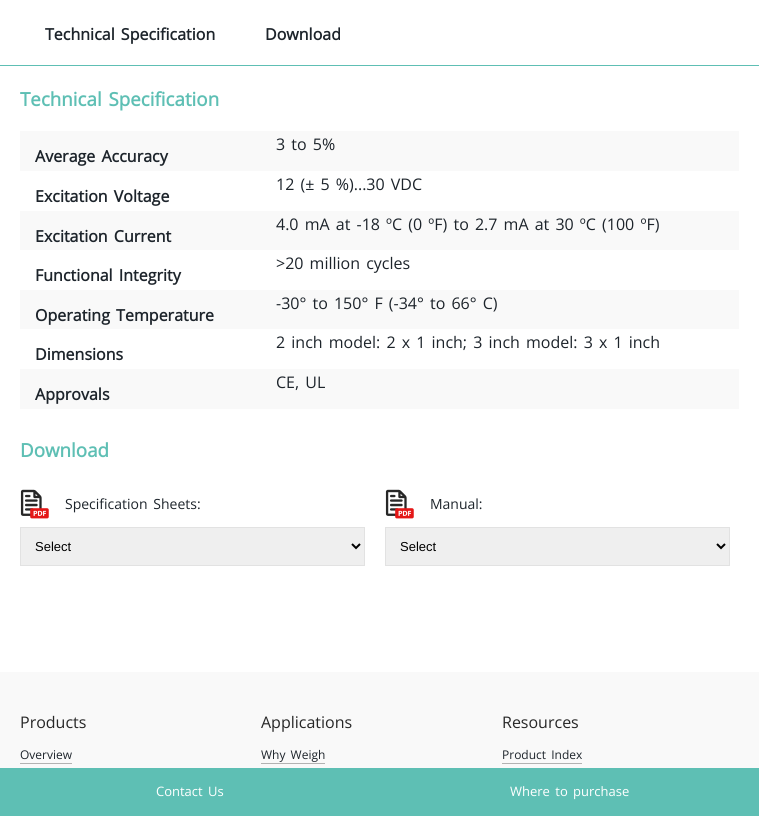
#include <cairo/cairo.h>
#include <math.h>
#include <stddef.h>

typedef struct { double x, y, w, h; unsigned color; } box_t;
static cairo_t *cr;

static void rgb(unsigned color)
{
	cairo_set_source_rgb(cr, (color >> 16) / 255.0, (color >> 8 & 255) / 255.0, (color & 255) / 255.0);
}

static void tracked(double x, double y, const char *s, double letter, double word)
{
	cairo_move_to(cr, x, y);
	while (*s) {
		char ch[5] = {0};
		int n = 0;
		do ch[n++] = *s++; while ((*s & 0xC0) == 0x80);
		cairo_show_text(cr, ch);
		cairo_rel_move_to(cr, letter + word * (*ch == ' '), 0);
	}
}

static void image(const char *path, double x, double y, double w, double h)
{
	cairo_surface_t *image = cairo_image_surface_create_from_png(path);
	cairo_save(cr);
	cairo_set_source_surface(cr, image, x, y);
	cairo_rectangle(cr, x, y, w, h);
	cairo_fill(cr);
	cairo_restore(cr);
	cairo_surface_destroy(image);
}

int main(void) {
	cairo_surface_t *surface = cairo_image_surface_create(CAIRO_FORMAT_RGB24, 759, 816);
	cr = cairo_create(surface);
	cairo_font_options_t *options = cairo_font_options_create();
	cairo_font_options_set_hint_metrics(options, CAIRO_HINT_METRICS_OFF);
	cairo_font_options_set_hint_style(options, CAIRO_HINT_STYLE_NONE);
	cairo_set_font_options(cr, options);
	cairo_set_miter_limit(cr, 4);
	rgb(0xffffff);
	cairo_paint(cr);
	{
		static const box_t items[] = {
			{0, 65, 759, 1, 0x5ebfb4},
			{20, 131, 719, 40, 0xf9f9f9},
			{20, 211, 719, 39, 0xf9f9f9},
			{20, 290, 719, 39, 0xf9f9f9},
			{20, 369, 719, 40, 0xf9f9f9},
		};
		for (size_t i = 0; i < sizeof items / sizeof *items; i++) {
			rgb(items[i].color);
			cairo_rectangle(cr, items[i].x, items[i].y, items[i].w, items[i].h);
			cairo_fill(cr);
		}
	}
	image("img/1.png", 20, 489, 29, 30);
	rgb(0xefefef);
	cairo_rectangle(cr, 20.5, 527.5, 344, 38);
	cairo_fill_preserve(cr);
	rgb(0xe2e2e2);
	cairo_set_line_width(cr, 1);
	cairo_stroke(cr);
	cairo_new_path(cr);
	cairo_move_to(cr, 352, 544);
	cairo_line_to(cr, 356, 548);
	cairo_line_to(cr, 360, 544);
	rgb(0x000000);
	cairo_set_line_width(cr, 2);
	cairo_stroke(cr);
	image("img/1.png", 385, 489, 29, 30);
	rgb(0xefefef);
	cairo_rectangle(cr, 385.5, 527.5, 344, 38);
	cairo_fill_preserve(cr);
	rgb(0xe2e2e2);
	cairo_set_line_width(cr, 1);
	cairo_stroke(cr);
	cairo_new_path(cr);
	cairo_move_to(cr, 717, 544);
	cairo_line_to(cr, 721, 548);
	cairo_line_to(cr, 725, 544);
	rgb(0x000000);
	cairo_set_line_width(cr, 2);
	cairo_stroke(cr);
	{
		static const box_t items[] = {
			{0, 768, 759, 48, 0x5ebfb4},
			{0, 672, 759, 96, 0xf9f9f9},
			{20, 763, 52, 1, 0xb2b2b2},
			{261, 763, 64, 1, 0xb2b2b2},
			{502, 763, 80, 1, 0xb2b2b2},
		};
		for (size_t i = 0; i < sizeof items / sizeof *items; i++) {
			rgb(items[i].color);
			cairo_rectangle(cr, items[i].x, items[i].y, items[i].w, items[i].h);
			cairo_fill(cr);
		}
	}
	cairo_select_font_face(cr, "Open Sans", CAIRO_FONT_SLANT_NORMAL, CAIRO_FONT_WEIGHT_BOLD);
	cairo_set_font_size(cr, 16);
	rgb(0x1d242b);
	tracked(45, 40, "Technical Specification", 0, 2);
	cairo_move_to(cr, 265, 40);
	cairo_show_text(cr, "Download");
	cairo_set_font_size(cr, 18.75);
	rgb(0x5ebfb4);
	tracked(20, 106, "Technical Specification", 0, 2);
	cairo_select_font_face(cr, "Open Sans", CAIRO_FONT_SLANT_NORMAL, CAIRO_FONT_WEIGHT_NORMAL);
	cairo_set_font_size(cr, 16);
	rgb(0x1d242b);
	tracked(276, 150, "3 to 5%", 0, 2);
	cairo_select_font_face(cr, "Open Sans", CAIRO_FONT_SLANT_NORMAL, CAIRO_FONT_WEIGHT_BOLD);
	tracked(35, 162, "Average Accuracy", 0, 2);
	cairo_select_font_face(cr, "Open Sans", CAIRO_FONT_SLANT_NORMAL, CAIRO_FONT_WEIGHT_NORMAL);
	tracked(276, 190, "12 (± 5 %)...30 VDC", 0, 2);
	cairo_select_font_face(cr, "Open Sans", CAIRO_FONT_SLANT_NORMAL, CAIRO_FONT_WEIGHT_BOLD);
	tracked(35, 202, "Excitation Voltage", 0, 2);
	cairo_select_font_face(cr, "Open Sans", CAIRO_FONT_SLANT_NORMAL, CAIRO_FONT_WEIGHT_NORMAL);
	tracked(276, 230, "4.0 mA at -18 ºC (0 ºF) to 2.7 mA at 30 ºC (100 ºF)", 0, 2);
	cairo_select_font_face(cr, "Open Sans", CAIRO_FONT_SLANT_NORMAL, CAIRO_FONT_WEIGHT_BOLD);
	tracked(35, 242, "Excitation Current", 0, 2);
	cairo_select_font_face(cr, "Open Sans", CAIRO_FONT_SLANT_NORMAL, CAIRO_FONT_WEIGHT_NORMAL);
	tracked(276, 269, ">20 million cycles", 0, 2);
	cairo_select_font_face(cr, "Open Sans", CAIRO_FONT_SLANT_NORMAL, CAIRO_FONT_WEIGHT_BOLD);
	tracked(35, 281, "Functional Integrity", 0, 2);
	cairo_select_font_face(cr, "Open Sans", CAIRO_FONT_SLANT_NORMAL, CAIRO_FONT_WEIGHT_NORMAL);
	tracked(276, 309, "-30° to 150° F (-34° to 66° C)", 0, 2);
	cairo_select_font_face(cr, "Open Sans", CAIRO_FONT_SLANT_NORMAL, CAIRO_FONT_WEIGHT_BOLD);
	tracked(35, 321, "Operating Temperature", 0, 2);
	cairo_select_font_face(cr, "Open Sans", CAIRO_FONT_SLANT_NORMAL, CAIRO_FONT_WEIGHT_NORMAL);
	tracked(276, 348, "2 inch model: 2 x 1 inch; 3 inch model: 3 x 1 inch", 0, 2);
	cairo_select_font_face(cr, "Open Sans", CAIRO_FONT_SLANT_NORMAL, CAIRO_FONT_WEIGHT_BOLD);
	cairo_move_to(cr, 35, 360);
	cairo_show_text(cr, "Dimensions");
	cairo_select_font_face(cr, "Open Sans", CAIRO_FONT_SLANT_NORMAL, CAIRO_FONT_WEIGHT_NORMAL);
	tracked(276, 388, "CE, UL", 0, 2);
	cairo_select_font_face(cr, "Open Sans", CAIRO_FONT_SLANT_NORMAL, CAIRO_FONT_WEIGHT_BOLD);
	cairo_move_to(cr, 35, 400);
	cairo_show_text(cr, "Approvals");
	cairo_set_font_size(cr, 18.75);
	rgb(0x5ebfb4);
	cairo_move_to(cr, 20, 457);
	cairo_show_text(cr, "Download");
	cairo_select_font_face(cr, "Open Sans", CAIRO_FONT_SLANT_NORMAL, CAIRO_FONT_WEIGHT_NORMAL);
	cairo_set_font_size(cr, 14);
	rgb(0x1d242b);
	tracked(65, 509, "Specification Sheets:", 0, 2);
	cairo_select_font_face(cr, "Liberation Sans", CAIRO_FONT_SLANT_NORMAL, CAIRO_FONT_WEIGHT_NORMAL);
	cairo_set_font_size(cr, 13);
	rgb(0x000000);
	cairo_move_to(cr, 35, 551);
	cairo_show_text(cr, "Select");
	cairo_select_font_face(cr, "Open Sans", CAIRO_FONT_SLANT_NORMAL, CAIRO_FONT_WEIGHT_NORMAL);
	cairo_set_font_size(cr, 14);
	rgb(0x1d242b);
	cairo_move_to(cr, 430, 509);
	cairo_show_text(cr, "Manual:");
	cairo_select_font_face(cr, "Liberation Sans", CAIRO_FONT_SLANT_NORMAL, CAIRO_FONT_WEIGHT_NORMAL);
	cairo_set_font_size(cr, 13);
	rgb(0x000000);
	cairo_move_to(cr, 400, 551);
	cairo_show_text(cr, "Select");
	cairo_select_font_face(cr, "Open Sans", CAIRO_FONT_SLANT_NORMAL, CAIRO_FONT_WEIGHT_NORMAL);
	rgb(0xffffff);
	tracked(156, 796, "Contact Us", 0, 2);
	tracked(510, 796, "Where to purchase", 0, 2);
	cairo_set_font_size(cr, 16);
	rgb(0x272727);
	cairo_move_to(cr, 20, 728);
	cairo_show_text(cr, "Products");
	cairo_set_font_size(cr, 12);
	rgb(0x1d242b);
	cairo_move_to(cr, 20, 759);
	cairo_show_text(cr, "Overview");
	cairo_set_font_size(cr, 16);
	rgb(0x272727);
	cairo_move_to(cr, 261, 728);
	cairo_show_text(cr, "Applications");
	cairo_set_font_size(cr, 12);
	rgb(0x1d242b);
	tracked(261, 759, "Why Weigh", 0, 2);
	cairo_set_font_size(cr, 16);
	rgb(0x272727);
	cairo_move_to(cr, 502, 728);
	cairo_show_text(cr, "Resources");
	cairo_set_font_size(cr, 12);
	rgb(0x1d242b);
	tracked(502, 759, "Product Index", 0, 2);
	cairo_surface_write_to_png(surface, "page.png");
	cairo_font_options_destroy(options);
	cairo_destroy(cr);
	cairo_surface_destroy(surface);
	return 0;
}
